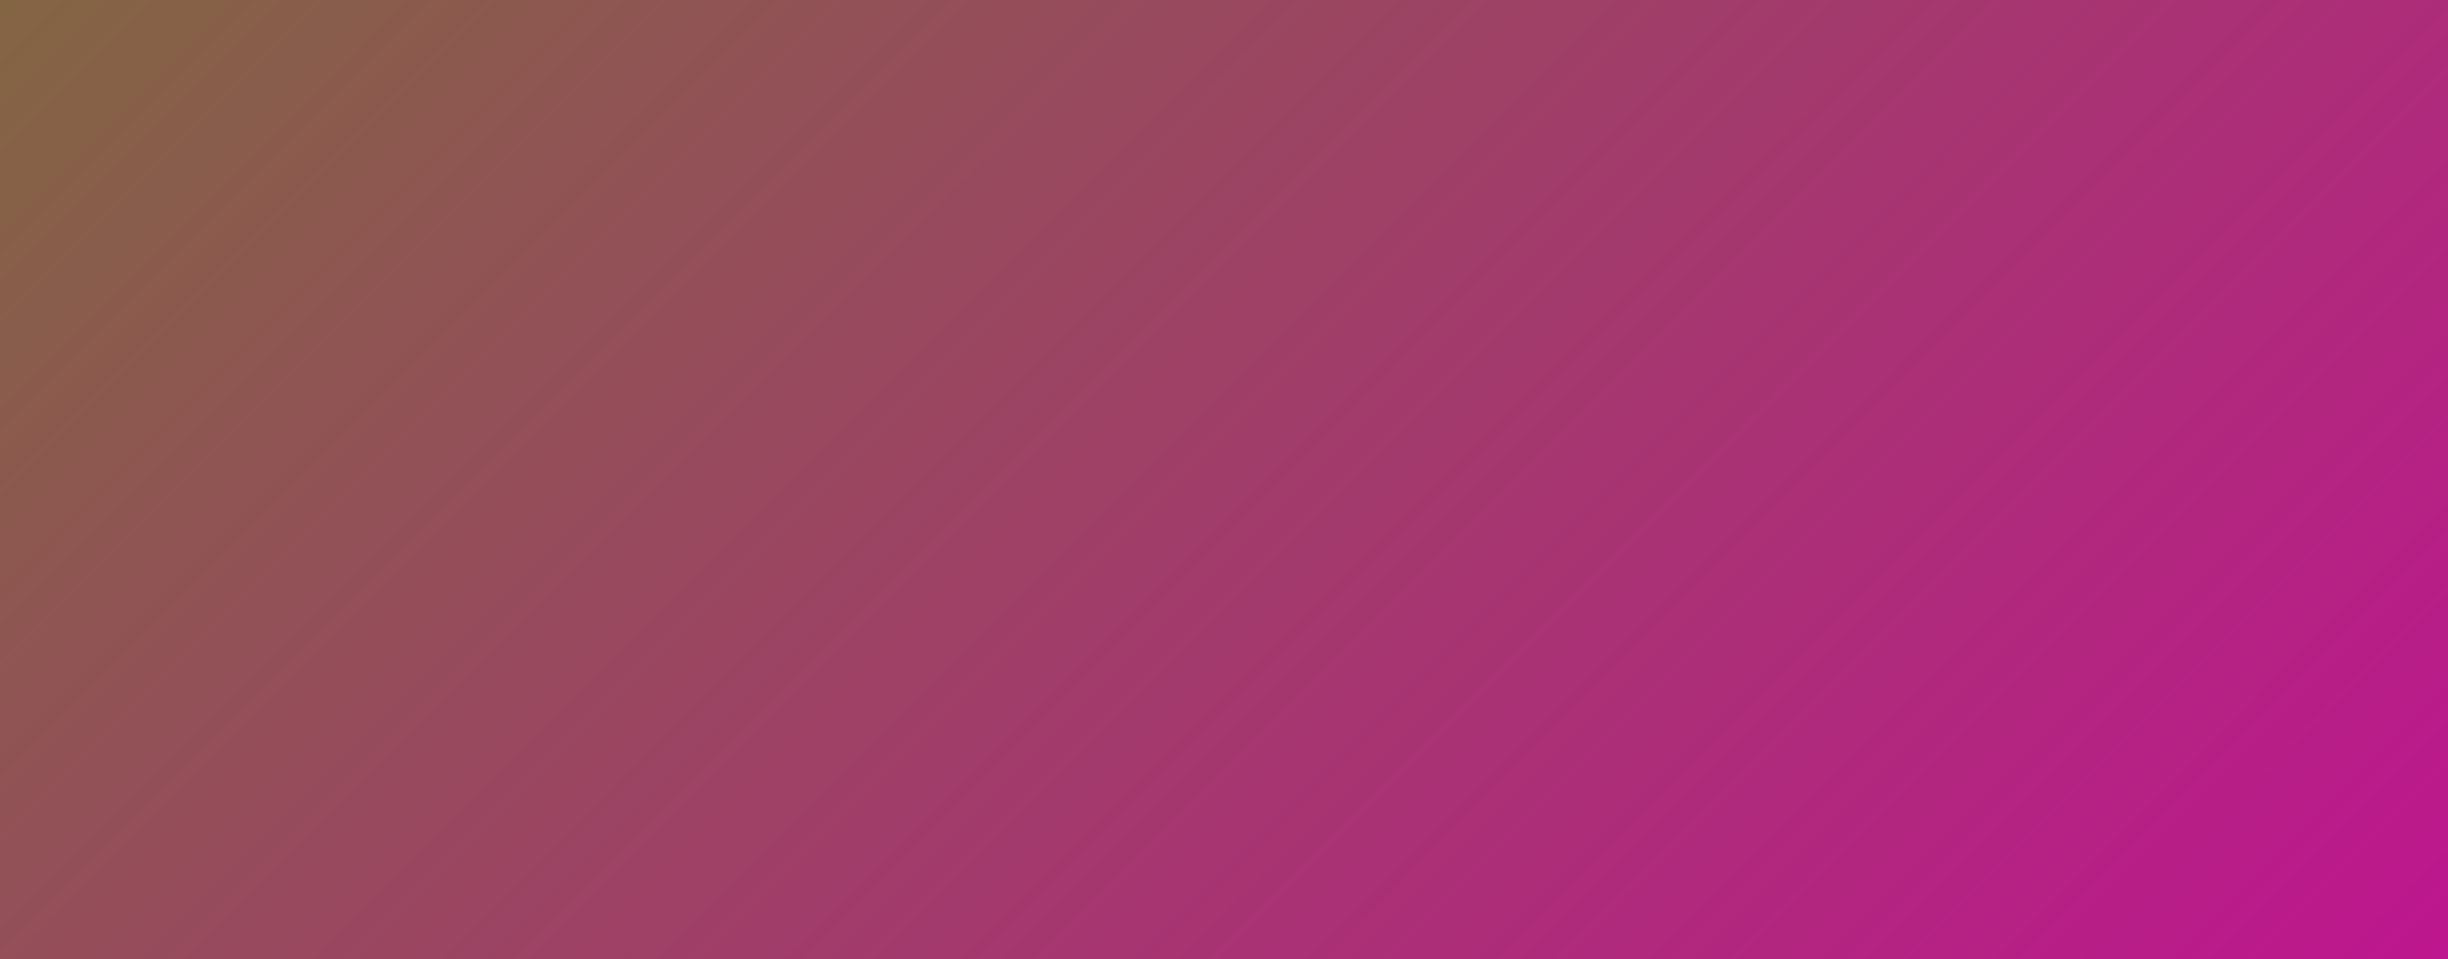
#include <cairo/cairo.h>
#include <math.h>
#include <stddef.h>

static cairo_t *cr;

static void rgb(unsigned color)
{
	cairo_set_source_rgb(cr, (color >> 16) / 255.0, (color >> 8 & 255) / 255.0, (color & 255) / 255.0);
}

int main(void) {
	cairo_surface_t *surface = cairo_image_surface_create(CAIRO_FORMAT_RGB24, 2448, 959);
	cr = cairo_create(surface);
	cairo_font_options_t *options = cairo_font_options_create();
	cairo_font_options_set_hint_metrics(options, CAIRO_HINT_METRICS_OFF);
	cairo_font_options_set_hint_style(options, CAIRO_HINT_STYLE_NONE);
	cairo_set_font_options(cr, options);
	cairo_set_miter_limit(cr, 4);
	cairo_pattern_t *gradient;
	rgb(0xffffff);
	cairo_paint(cr);
	gradient = cairo_pattern_create_linear(372, -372, 2077, 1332);
	cairo_pattern_add_color_stop_rgba(gradient, 0, 0.514, 0.396, 0.263, 1);
	cairo_pattern_add_color_stop_rgba(gradient, 1, 0.745, 0.086, 0.561, 1);
	cairo_set_source(cr, gradient);
	cairo_pattern_destroy(gradient);
	cairo_rectangle(cr, 0, 0, 2448, 959);
	cairo_fill(cr);
	cairo_surface_write_to_png(surface, "page.png");
	cairo_font_options_destroy(options);
	cairo_destroy(cr);
	cairo_surface_destroy(surface);
	return 0;
}
